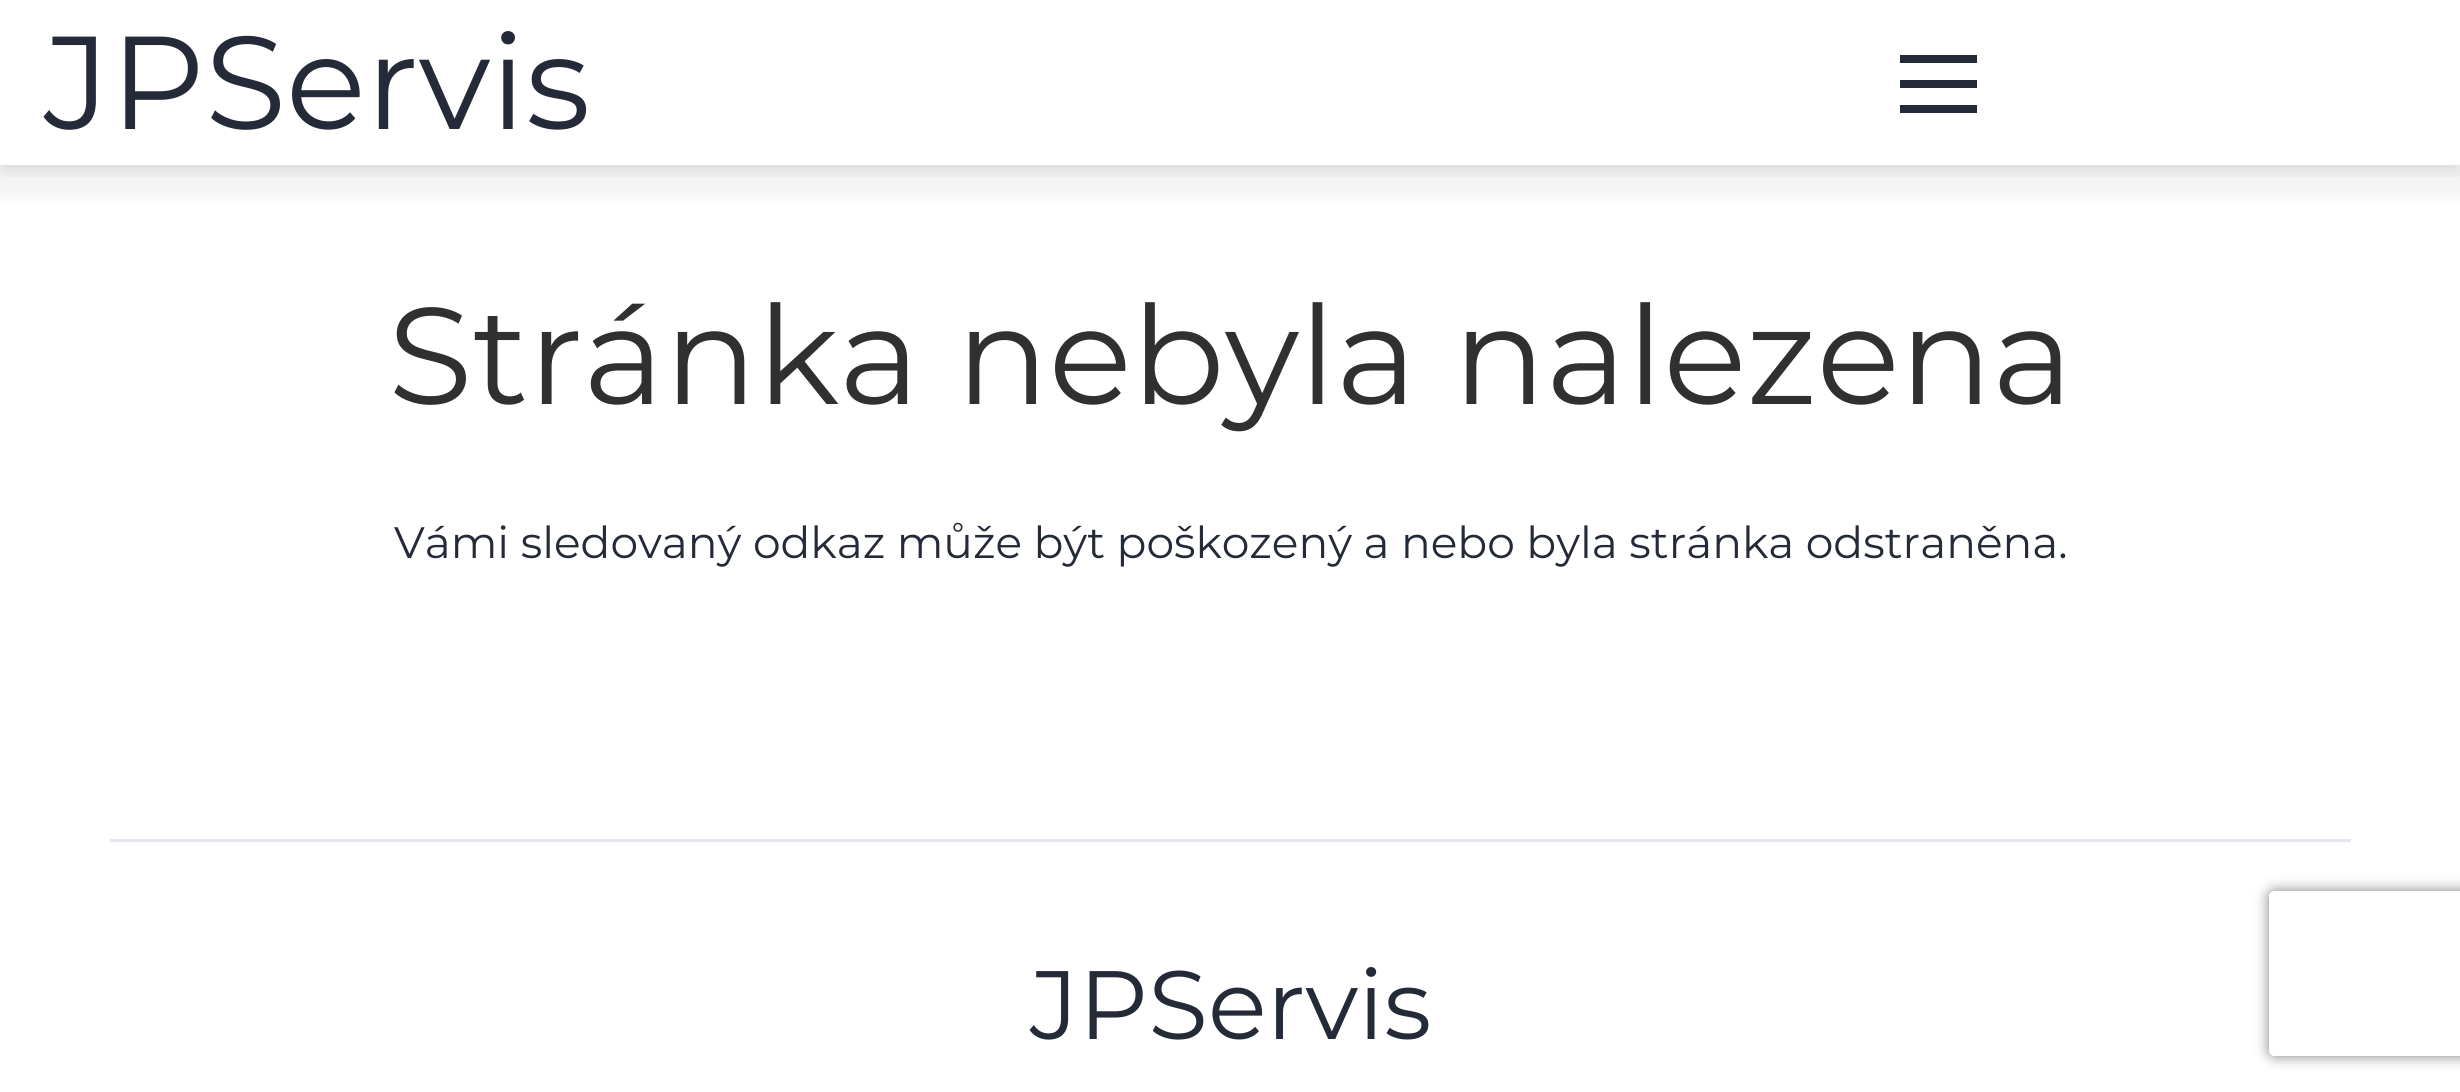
#include <cairo/cairo.h>
#include <math.h>
#include <stddef.h>

typedef struct { double x, y, w, h; unsigned color; } box_t;
static cairo_t *cr;

static void rgb(unsigned color)
{
	cairo_set_source_rgb(cr, (color >> 16) / 255.0, (color >> 8 & 255) / 255.0, (color & 255) / 255.0);
}

static void rrect(double x, double y, double w, double h, double r)
{
	cairo_new_sub_path(cr);
	cairo_arc(cr, x + w - r, y + h - r, r, 0, M_PI / 2);
	cairo_arc(cr, x + r, y + h - r, r, M_PI / 2, M_PI);
	cairo_arc(cr, x + r, y + r, r, M_PI, 1.5 * M_PI);
	cairo_arc(cr, x + w - r, y + r, r, 1.5 * M_PI, 2 * M_PI);
	cairo_close_path(cr);
}

static void soft_shadow(double x, double y, double w, double h, double r, double blur, double alpha)
{
	cairo_push_group_with_content(cr, CAIRO_CONTENT_ALPHA);
	cairo_set_operator(cr, CAIRO_OPERATOR_SOURCE);
	for (int i = 15; i >= -15 && fmin(w, h) + blur * i / 3 > 0; i -= 2) {
		double e = blur * i / 6;
		cairo_set_source_rgba(cr, 0, 0, 0, alpha * erfc((i - 1) / 8.5) / 2);
		rrect(x - e, y - e, w + 2 * e, h + 2 * e, fmax(0, fmin(r + e + blur * .6, fmin(w, h) / 2 + e)));
		cairo_fill(cr);
	}
	cairo_pattern_t *soft = cairo_pop_group(cr);
	cairo_mask(cr, soft);
	cairo_pattern_destroy(soft);
}

int main(void) {
	cairo_surface_t *surface = cairo_image_surface_create(CAIRO_FORMAT_RGB24, 2460, 1092);
	cr = cairo_create(surface);
	cairo_font_options_t *options = cairo_font_options_create();
	cairo_font_options_set_hint_metrics(options, CAIRO_HINT_METRICS_OFF);
	cairo_font_options_set_hint_style(options, CAIRO_HINT_STYLE_NONE);
	cairo_set_font_options(cr, options);
	cairo_set_miter_limit(cr, 4);
	rgb(0xffffff);
	cairo_paint(cr);
	cairo_save(cr);
	cairo_rectangle(cr, 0, 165, 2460, 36);
	cairo_clip(cr);
	rgb(0x000000);
	soft_shadow(-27, -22, 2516, 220, 0, 11, 0.05);
	cairo_restore(cr);
	cairo_save(cr);
	cairo_rectangle(cr, 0, 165, 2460, 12);
	cairo_clip(cr);
	rgb(0x000000);
	soft_shadow(3, 11, 2456, 160, 0, 7, 0.1);
	cairo_restore(cr);
	{
		static const box_t items[] = {
			{1900, 80, 77, 8, 0x242a38},
			{1900, 55, 77, 8, 0x242a38},
			{1900, 105, 77, 8, 0x242a38},
			{110, 839, 2241, 3, 0xe3e7f0},
		};
		for (size_t i = 0; i < sizeof items / sizeof *items; i++) {
			rgb(items[i].color);
			cairo_rectangle(cr, items[i].x, items[i].y, items[i].w, items[i].h);
			cairo_fill(cr);
		}
	}
	cairo_save(cr);
	cairo_set_fill_rule(cr, CAIRO_FILL_RULE_EVEN_ODD);
	cairo_new_path(cr);
	cairo_move_to(cr, 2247, 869);
	cairo_line_to(cr, 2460, 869);
	cairo_line_to(cr, 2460, 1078);
	cairo_line_to(cr, 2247, 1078);
	cairo_close_path(cr);
	cairo_move_to(cr, 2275, 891);
	cairo_line_to(cr, 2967, 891);
	cairo_curve_to(cr, 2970.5, 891, 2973, 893.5, 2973, 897);
	cairo_line_to(cr, 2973, 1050);
	cairo_curve_to(cr, 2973, 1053.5, 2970.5, 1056, 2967, 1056);
	cairo_line_to(cr, 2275, 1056);
	cairo_curve_to(cr, 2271.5, 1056, 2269, 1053.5, 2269, 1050);
	cairo_line_to(cr, 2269, 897);
	cairo_curve_to(cr, 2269, 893.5, 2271.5, 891, 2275, 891);
	cairo_close_path(cr);
	cairo_clip(cr);
	rgb(0x808080);
	soft_shadow(2269, 891, 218, 165, 6, 7, 1);
	cairo_restore(cr);
	cairo_select_font_face(cr, "Montserrat", CAIRO_FONT_SLANT_NORMAL, CAIRO_FONT_WEIGHT_NORMAL);
	cairo_set_font_size(cr, 132);
	rgb(0x242a38);
	cairo_move_to(cr, 44, 129);
	cairo_show_text(cr, "JPServis");
	cairo_set_font_size(cr, 137.25);
	rgb(0x31302f);
	cairo_move_to(cr, 388, 404);
	cairo_show_text(cr, "Stránka nebyla nalezena");
	cairo_set_font_size(cr, 44);
	rgb(0x242a38);
	cairo_move_to(cr, 394, 558);
	cairo_show_text(cr, "Vámi sledovaný odkaz může být poškozený a nebo byla stránka odstraněna.");
	cairo_set_font_size(cr, 97);
	cairo_move_to(cr, 1030, 1039);
	cairo_show_text(cr, "JPServis");
	cairo_surface_write_to_png(surface, "page.png");
	cairo_font_options_destroy(options);
	cairo_destroy(cr);
	cairo_surface_destroy(surface);
	return 0;
}
